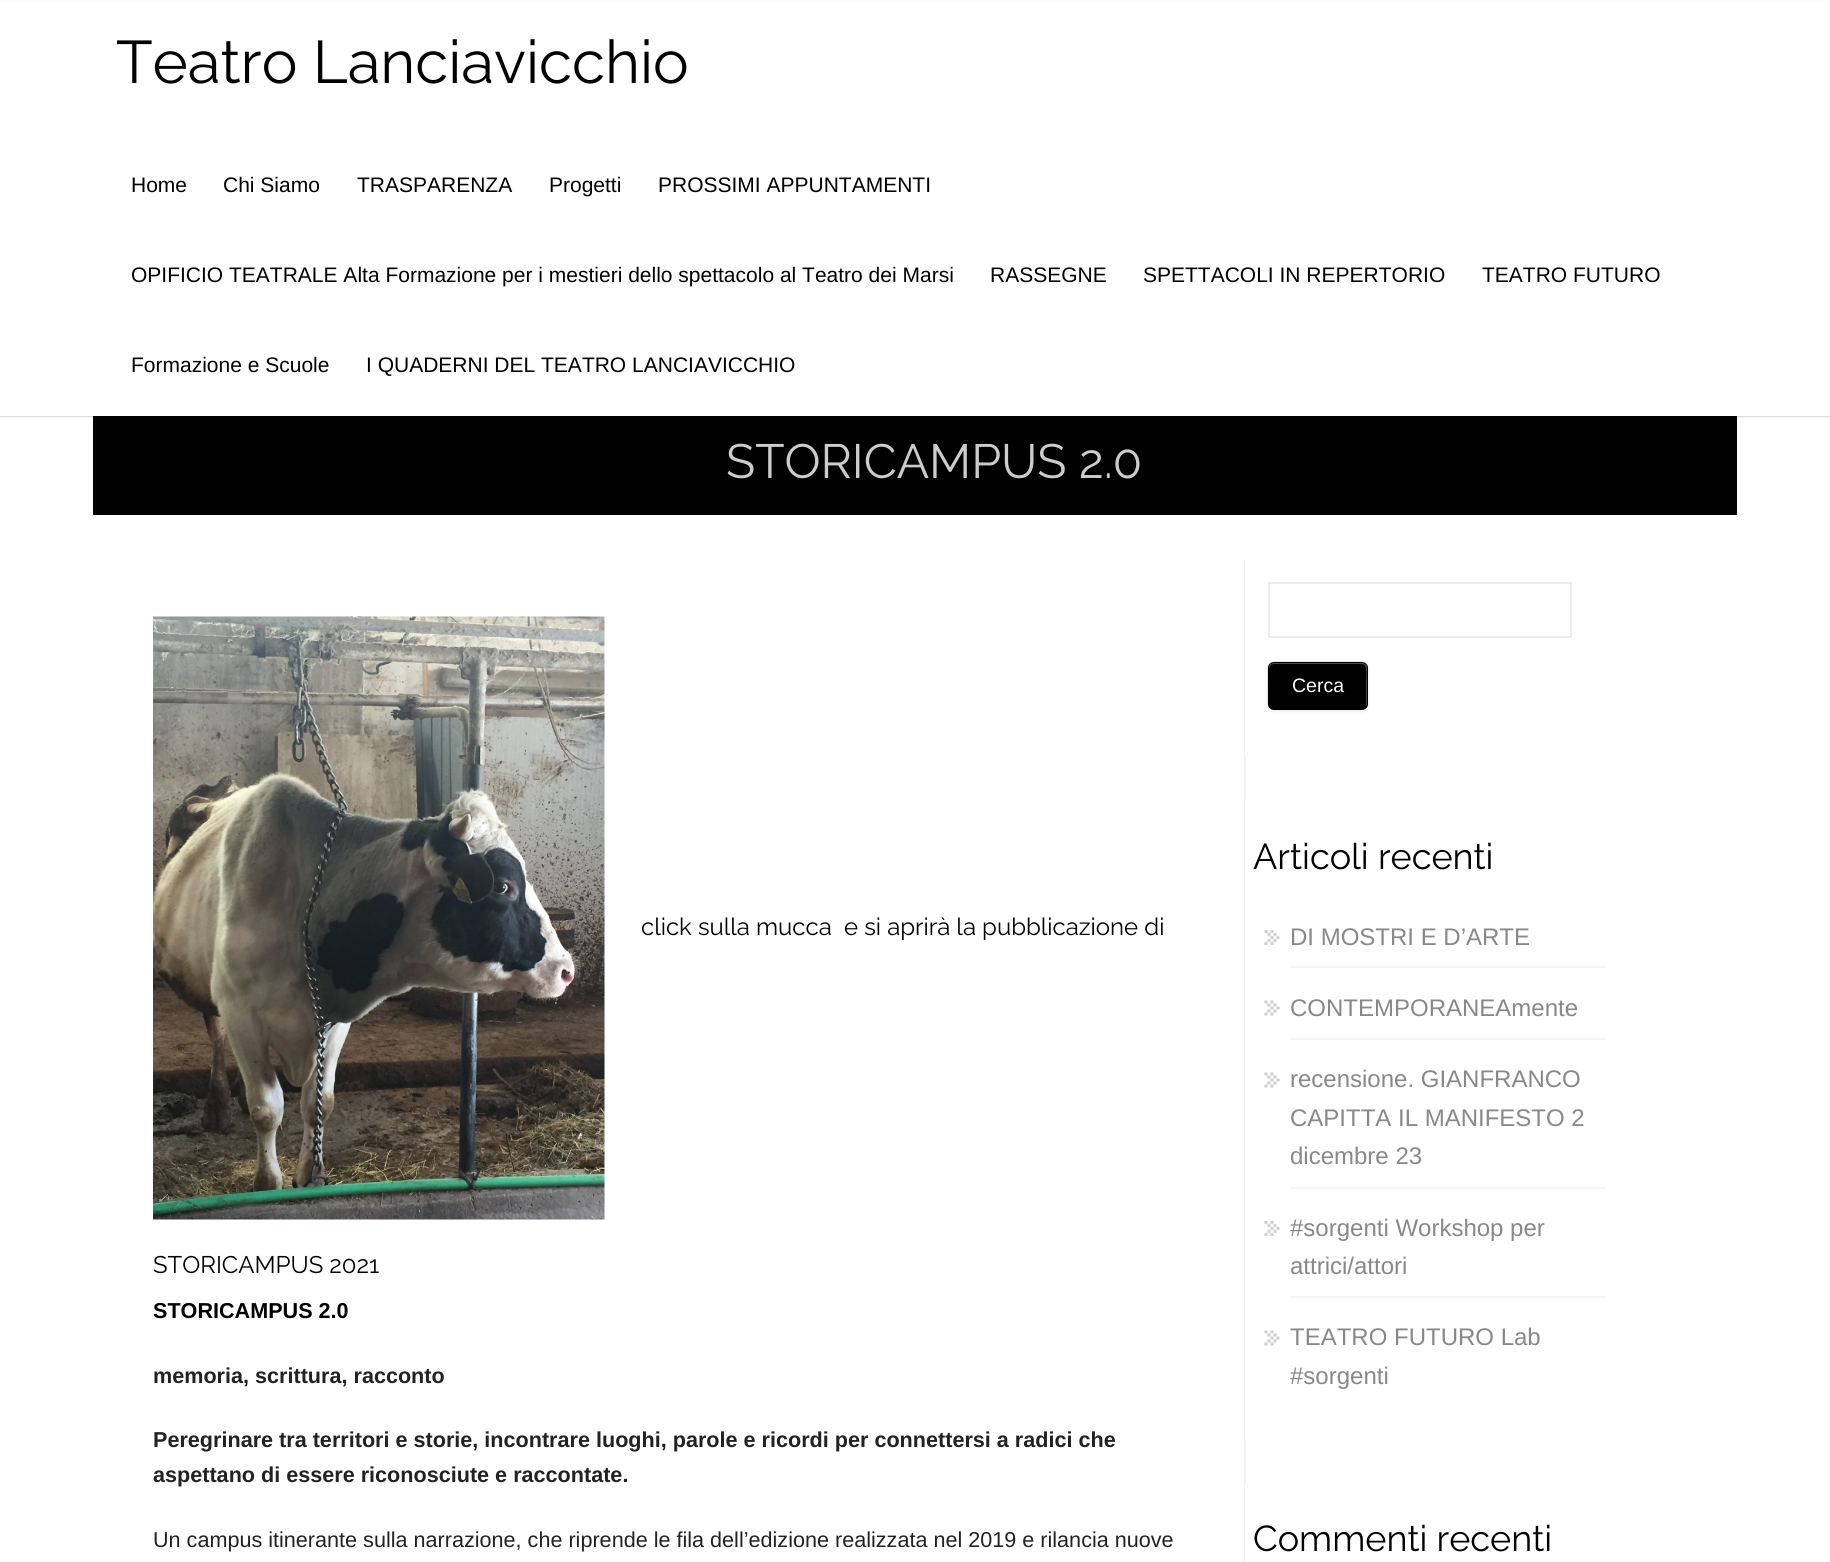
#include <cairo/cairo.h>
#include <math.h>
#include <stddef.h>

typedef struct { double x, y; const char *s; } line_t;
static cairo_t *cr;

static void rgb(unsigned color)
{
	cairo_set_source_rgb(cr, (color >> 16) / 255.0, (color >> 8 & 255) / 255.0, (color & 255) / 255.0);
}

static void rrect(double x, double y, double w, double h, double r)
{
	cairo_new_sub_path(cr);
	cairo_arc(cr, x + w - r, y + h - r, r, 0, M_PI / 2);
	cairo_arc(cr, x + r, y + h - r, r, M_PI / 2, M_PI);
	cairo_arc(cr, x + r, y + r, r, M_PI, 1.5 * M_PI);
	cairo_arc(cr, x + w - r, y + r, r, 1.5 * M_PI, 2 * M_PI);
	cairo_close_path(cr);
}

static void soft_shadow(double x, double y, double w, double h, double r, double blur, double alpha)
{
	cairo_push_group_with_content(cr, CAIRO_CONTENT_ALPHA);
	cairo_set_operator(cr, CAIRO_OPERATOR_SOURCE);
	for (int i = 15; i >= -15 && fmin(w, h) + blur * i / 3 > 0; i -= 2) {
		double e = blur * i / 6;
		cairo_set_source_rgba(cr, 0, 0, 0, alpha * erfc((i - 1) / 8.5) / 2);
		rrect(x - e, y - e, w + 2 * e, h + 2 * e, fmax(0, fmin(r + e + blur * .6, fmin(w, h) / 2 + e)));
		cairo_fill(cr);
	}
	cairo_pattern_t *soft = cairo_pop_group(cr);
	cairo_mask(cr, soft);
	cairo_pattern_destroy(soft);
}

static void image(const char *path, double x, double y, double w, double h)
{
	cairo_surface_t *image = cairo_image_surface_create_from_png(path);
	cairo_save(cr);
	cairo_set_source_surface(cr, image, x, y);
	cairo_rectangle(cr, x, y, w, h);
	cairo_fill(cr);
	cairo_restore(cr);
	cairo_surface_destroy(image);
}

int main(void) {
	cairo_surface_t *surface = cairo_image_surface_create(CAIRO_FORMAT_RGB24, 1830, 1562);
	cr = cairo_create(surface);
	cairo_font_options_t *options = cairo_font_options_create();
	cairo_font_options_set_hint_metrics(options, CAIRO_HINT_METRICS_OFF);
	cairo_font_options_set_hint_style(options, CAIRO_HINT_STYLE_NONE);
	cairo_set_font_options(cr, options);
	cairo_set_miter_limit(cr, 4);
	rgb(0xffffff);
	cairo_paint(cr);
	rgb(0xf0f0f0);
	cairo_rectangle(cr, 0, 416, 1830, 1);
	cairo_fill(cr);
	rgb(0x000000);
	cairo_rectangle(cr, 93, 416, 1644, 99);
	cairo_fill(cr);
	rgb(0x000000);
	soft_shadow(0, 2, 1830, 415, 0, 1, 0.1);
	rgb(0xffffff);
	cairo_rectangle(cr, 0, 1, 1830, 415);
	cairo_fill(cr);
	image("img/1.png", 153, 616, 452, 604);
	rgb(0xf2f2f2);
	cairo_rectangle(cr, 1244, 560, 2, 1002);
	cairo_fill(cr);
	rgb(0xffffff);
	cairo_rectangle(cr, 1245, 560, 1, 196);
	cairo_fill(cr);
	cairo_rectangle(cr, 1269, 583, 302, 54);
	rgb(0xececec);
	cairo_stroke(cr);
	rgb(0x000000);
	soft_shadow(1268, 663, 100, 48, 6, 2, 0.1);
	rgb(0x000000);
	rrect(1268, 662, 100, 48, 6);
	cairo_fill(cr);
	rgb(0x4d4d4d);
	cairo_new_path(cr);
	cairo_move_to(cr, 1274, 664);
	cairo_line_to(cr, 1362, 664);
	cairo_curve_to(cr, 1368, 664, 1366, 679, 1366, 681);
	cairo_line_to(cr, 1366, 706);
	cairo_curve_to(cr, 1367, 705, 1367, 704, 1367, 703);
	cairo_line_to(cr, 1367, 668);
	cairo_curve_to(cr, 1367, 665, 1365, 663, 1362, 663);
	cairo_line_to(cr, 1274, 663);
	cairo_curve_to(cr, 1271, 663, 1269, 665, 1269, 668);
	cairo_line_to(cr, 1269, 669);
	cairo_curve_to(cr, 1269, 667, 1271, 664, 1274, 664);
	cairo_close_path(cr);
	cairo_fill(cr);
	cairo_new_path(cr);
	cairo_move_to(cr, 1365.5, 707);
	cairo_line_to(cr, 1362.5, 708.5);
	cairo_line_to(cr, 1273, 708.5);
	cairo_line_to(cr, 1270, 707);
	rgb(0x000000);
	cairo_set_line_width(cr, 1.5);
	cairo_stroke(cr);
	cairo_new_path(cr);
	cairo_move_to(cr, 1270, 707);
	cairo_curve_to(cr, 1267.5, 705, 1268, 700.5, 1268, 697.5);
	cairo_line_to(cr, 1268, 685.5);
	cairo_curve_to(cr, 1268, 660.5, 1264, 662, 1288, 662);
	cairo_line_to(cr, 1347, 662);
	cairo_curve_to(cr, 1371.5, 662, 1367, 660.5, 1367, 685.5);
	cairo_line_to(cr, 1367, 697.5);
	cairo_curve_to(cr, 1367, 700.5, 1368, 705, 1365.5, 707);
	cairo_set_source_rgba(cr, 0, 0, 0, 0.1);
	cairo_stroke(cr);
	rgb(0xffffff);
	cairo_rectangle(cr, 1245, 801, 1, 638);
	cairo_fill(cr);
	rgb(0xf5f5f5);
	cairo_rectangle(cr, 1290, 966, 315, 2);
	cairo_fill(cr);
	image("img/2.png", 1264, 930, 16, 15);
	cairo_rectangle(cr, 1290, 1038, 315, 2);
	cairo_fill(cr);
	image("img/3.png", 1264, 1000, 16, 16);
	cairo_rectangle(cr, 1290, 1187, 315, 2);
	cairo_fill(cr);
	image("img/3.png", 1264, 1072, 16, 16);
	cairo_rectangle(cr, 1290, 1296, 315, 2);
	cairo_fill(cr);
	image("img/2.png", 1264, 1221, 16, 15);
	image("img/3.png", 1264, 1330, 16, 16);
	rgb(0xffffff);
	cairo_rectangle(cr, 1245, 1484, 1, 78);
	cairo_fill(cr);
	cairo_select_font_face(cr, "Raleway", CAIRO_FONT_SLANT_NORMAL, CAIRO_FONT_WEIGHT_NORMAL);
	cairo_set_font_size(cr, 60);
	rgb(0x000000);
	cairo_move_to(cr, 116, 83);
	cairo_show_text(cr, "Teatro Lanciavicchio");
	cairo_select_font_face(cr, "Liberation Sans", CAIRO_FONT_SLANT_NORMAL, CAIRO_FONT_WEIGHT_NORMAL);
	cairo_set_font_size(cr, 21);
	{
		static const line_t items[] = {
			{131, 192, "Home"},
			{223, 192, "Chi Siamo"},
			{357, 192, "TRASPARENZA"},
			{549, 192, "Progetti"},
			{658, 192, "PROSSIMI APPUNTAMENTI"},
			{131, 282, "OPIFICIO TEATRALE Alta Formazione per i mestieri dello spettacolo al Teatro dei Marsi"},
			{990, 282, "RASSEGNE"},
			{1143, 282, "SPETTACOLI IN REPERTORIO"},
			{1482, 282, "TEATRO FUTURO"},
			{131, 372, "Formazione e Scuole"},
			{366, 372, "I QUADERNI DEL TEATRO LANCIAVICCHIO"},
		};
		for (size_t i = 0; i < sizeof items / sizeof *items; i++) {
			cairo_move_to(cr, items[i].x, items[i].y);
			cairo_show_text(cr, items[i].s);
		}
	}
	cairo_select_font_face(cr, "Raleway", CAIRO_FONT_SLANT_NORMAL, CAIRO_FONT_WEIGHT_NORMAL);
	cairo_set_font_size(cr, 48);
	rgb(0xcccccc);
	cairo_move_to(cr, 726, 478);
	cairo_show_text(cr, "STORICAMPUS 2.0");
	cairo_set_font_size(cr, 24);
	rgb(0x000000);
	cairo_move_to(cr, 641, 935);
	cairo_show_text(cr, "click sulla mucca  e si aprirà la pubblicazione di");
	cairo_move_to(cr, 153, 1273);
	cairo_show_text(cr, "STORICAMPUS 2021");
	cairo_select_font_face(cr, "Liberation Sans", CAIRO_FONT_SLANT_NORMAL, CAIRO_FONT_WEIGHT_BOLD);
	cairo_set_font_size(cr, 21.6);
	cairo_move_to(cr, 153, 1318);
	cairo_show_text(cr, "STORICAMPUS 2.0");
	rgb(0x222222);
	{
		static const line_t items[] = {
			{153, 1383, "memoria, scrittura, racconto"},
			{153, 1447, "Peregrinare tra territori e storie, incontrare luoghi, parole e ricordi per connettersi a radici che"},
			{153, 1482, "aspettano di essere riconosciute e raccontate."},
		};
		for (size_t i = 0; i < sizeof items / sizeof *items; i++) {
			cairo_move_to(cr, items[i].x, items[i].y);
			cairo_show_text(cr, items[i].s);
		}
	}
	cairo_select_font_face(cr, "Liberation Sans", CAIRO_FONT_SLANT_NORMAL, CAIRO_FONT_WEIGHT_NORMAL);
	cairo_move_to(cr, 153, 1547);
	cairo_show_text(cr, "Un campus itinerante sulla narrazione, che riprende le fila dell’edizione realizzata nel 2019 e rilancia nuove");
	cairo_set_font_size(cr, 19.5);
	rgb(0xffffff);
	cairo_move_to(cr, 1292, 692);
	cairo_show_text(cr, "Cerca");
	cairo_select_font_face(cr, "Raleway", CAIRO_FONT_SLANT_NORMAL, CAIRO_FONT_WEIGHT_NORMAL);
	cairo_set_font_size(cr, 36);
	rgb(0x000000);
	cairo_move_to(cr, 1253, 869);
	cairo_show_text(cr, "Articoli recenti");
	cairo_select_font_face(cr, "Liberation Sans", CAIRO_FONT_SLANT_NORMAL, CAIRO_FONT_WEIGHT_NORMAL);
	cairo_set_font_size(cr, 24);
	rgb(0x888888);
	{
		static const line_t items[] = {
			{1290, 945, "DI MOSTRI E D’ARTE"},
			{1290, 1016, "CONTEMPORANEAmente"},
			{1290, 1087, "recensione. GIANFRANCO"},
			{1290, 1126, "CAPITTA IL MANIFESTO 2"},
			{1290, 1164, "dicembre 23"},
			{1290, 1236, "#sorgenti Workshop per"},
			{1290, 1274, "attrici/attori"},
			{1290, 1345, "TEATRO FUTURO Lab"},
			{1290, 1384, "#sorgenti"},
		};
		for (size_t i = 0; i < sizeof items / sizeof *items; i++) {
			cairo_move_to(cr, items[i].x, items[i].y);
			cairo_show_text(cr, items[i].s);
		}
	}
	cairo_select_font_face(cr, "Raleway", CAIRO_FONT_SLANT_NORMAL, CAIRO_FONT_WEIGHT_NORMAL);
	cairo_set_font_size(cr, 36);
	rgb(0x000000);
	cairo_move_to(cr, 1253, 1551);
	cairo_show_text(cr, "Commenti recenti");
	cairo_surface_write_to_png(surface, "page.png");
	cairo_font_options_destroy(options);
	cairo_destroy(cr);
	cairo_surface_destroy(surface);
	return 0;
}
